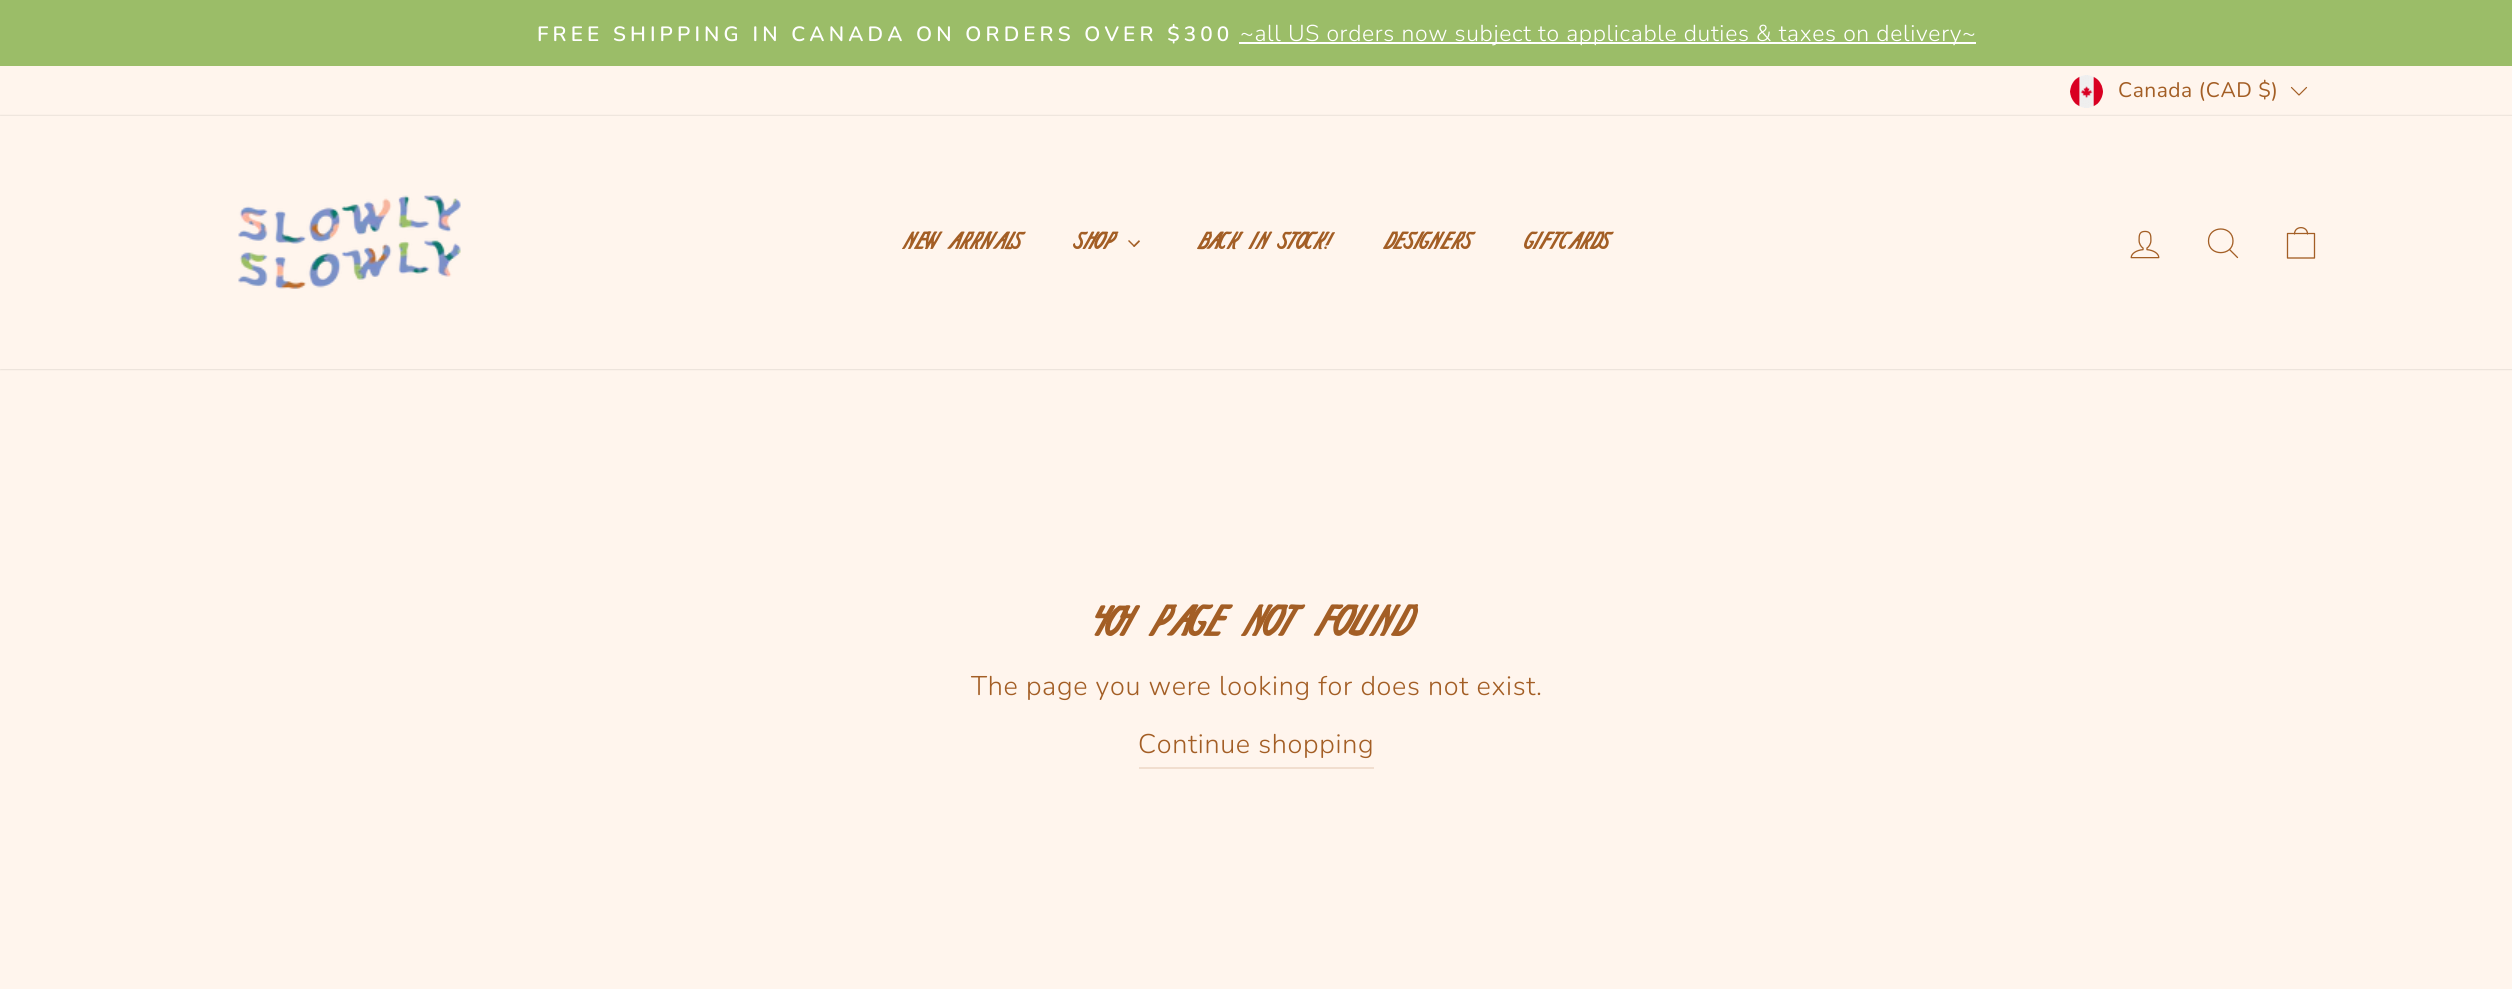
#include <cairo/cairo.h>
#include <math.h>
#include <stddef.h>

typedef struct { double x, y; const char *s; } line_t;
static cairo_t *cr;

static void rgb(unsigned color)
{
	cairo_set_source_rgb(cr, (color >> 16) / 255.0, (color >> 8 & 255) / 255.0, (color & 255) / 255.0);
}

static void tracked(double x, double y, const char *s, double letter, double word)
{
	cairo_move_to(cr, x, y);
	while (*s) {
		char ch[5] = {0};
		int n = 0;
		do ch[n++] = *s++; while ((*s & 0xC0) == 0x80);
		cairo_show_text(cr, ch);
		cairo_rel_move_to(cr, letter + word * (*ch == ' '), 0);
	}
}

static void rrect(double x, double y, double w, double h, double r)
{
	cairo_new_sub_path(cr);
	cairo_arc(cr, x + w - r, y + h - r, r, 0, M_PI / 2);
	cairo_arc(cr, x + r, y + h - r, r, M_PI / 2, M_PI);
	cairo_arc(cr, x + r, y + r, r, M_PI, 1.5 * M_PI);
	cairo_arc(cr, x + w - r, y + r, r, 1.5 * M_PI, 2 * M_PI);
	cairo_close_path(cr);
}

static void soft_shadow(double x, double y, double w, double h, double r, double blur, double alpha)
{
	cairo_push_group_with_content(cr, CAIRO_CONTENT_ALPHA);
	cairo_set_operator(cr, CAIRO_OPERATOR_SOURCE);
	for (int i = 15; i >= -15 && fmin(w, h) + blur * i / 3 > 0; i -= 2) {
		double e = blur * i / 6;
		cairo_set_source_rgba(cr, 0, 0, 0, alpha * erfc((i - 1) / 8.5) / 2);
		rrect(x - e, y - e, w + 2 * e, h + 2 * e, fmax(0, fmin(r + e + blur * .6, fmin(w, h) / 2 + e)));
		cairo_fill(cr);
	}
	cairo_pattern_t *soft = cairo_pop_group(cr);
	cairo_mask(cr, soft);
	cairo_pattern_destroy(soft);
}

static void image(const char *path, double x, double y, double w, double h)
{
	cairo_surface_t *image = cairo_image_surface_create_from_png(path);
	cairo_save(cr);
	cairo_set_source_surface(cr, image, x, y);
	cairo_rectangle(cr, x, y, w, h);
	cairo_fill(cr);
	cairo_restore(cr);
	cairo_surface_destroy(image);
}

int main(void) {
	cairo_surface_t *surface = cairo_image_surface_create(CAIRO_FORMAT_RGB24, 2512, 989);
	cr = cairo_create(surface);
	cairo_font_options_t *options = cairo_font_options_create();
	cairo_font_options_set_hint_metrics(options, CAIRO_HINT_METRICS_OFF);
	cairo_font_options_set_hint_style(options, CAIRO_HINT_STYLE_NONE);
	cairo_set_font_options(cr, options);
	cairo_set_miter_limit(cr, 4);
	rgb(0xfff5ed);
	cairo_paint(cr);
	rgb(0x9bbd68);
	cairo_rectangle(cr, 0, 0, 2512, 66);
	cairo_fill(cr);
	rgb(0xffffff);
	cairo_rectangle(cr, 1239, 42, 737, 2);
	cairo_fill(cr);
	image("img/1.png", 2070, 75, 33, 33);
	cairo_new_path(cr);
	cairo_move_to(cr, 2291.5, 87.5);
	cairo_line_to(cr, 2299, 95);
	cairo_line_to(cr, 2306.5, 87.5);
	rgb(0xa35e25);
	cairo_set_line_width(cr, 1.2);
	cairo_set_line_cap(cr, CAIRO_LINE_CAP_ROUND);
	cairo_set_line_join(cr, CAIRO_LINE_JOIN_ROUND);
	cairo_stroke(cr);
	cairo_save(cr);
	cairo_set_fill_rule(cr, CAIRO_FILL_RULE_EVEN_ODD);
	cairo_new_path(cr);
	cairo_move_to(cr, 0, 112);
	cairo_line_to(cr, 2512, 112);
	cairo_line_to(cr, 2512, 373);
	cairo_line_to(cr, 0, 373);
	cairo_close_path(cr);
	cairo_move_to(cr, 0, 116);
	cairo_line_to(cr, 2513, 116);
	cairo_line_to(cr, 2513, 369);
	cairo_line_to(cr, 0, 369);
	cairo_close_path(cr);
	cairo_clip(cr);
	rgb(0x000000);
	soft_shadow(0, 116, 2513, 253, 0, 1, 0.2);
	cairo_restore(cr);
	image("img/2.png", 238, 195, 223, 94);
	cairo_new_path(cr);
	cairo_move_to(cr, 1139, 240);
	cairo_line_to(cr, 1140, 241.5);
	cairo_line_to(cr, 1134.5, 247);
	cairo_line_to(cr, 1133, 246);
	cairo_close_path(cr);
	cairo_fill(cr);
	cairo_new_path(cr);
	cairo_move_to(cr, 1129, 240);
	cairo_line_to(cr, 1135, 246);
	cairo_line_to(cr, 1134, 247);
	cairo_line_to(cr, 1128, 241);
	cairo_close_path(cr);
	cairo_fill(cr);
	image("img/3.png", 2130, 230, 30, 29);
	cairo_new_path(cr);
	cairo_move_to(cr, 2233, 241);
	cairo_curve_to(cr, 2233, 256.5, 2208.5, 256.5, 2208.5, 241);
	cairo_curve_to(cr, 2208.5, 225, 2233, 225, 2233, 241);
	cairo_close_path(cr);
	cairo_move_to(cr, 2237.5, 257.5);
	cairo_line_to(cr, 2229.5, 249.5);
	cairo_set_line_width(cr, 1.3);
	cairo_stroke(cr);
	cairo_new_path(cr);
	cairo_move_to(cr, 2287.5, 233.5);
	cairo_line_to(cr, 2314.5, 233.5);
	cairo_line_to(cr, 2314.5, 258);
	cairo_line_to(cr, 2287.5, 258);
	cairo_close_path(cr);
	cairo_move_to(cr, 2294.5, 234);
	cairo_curve_to(cr, 2294.5, 225.5, 2307.5, 225.5, 2307.5, 234);
	cairo_stroke(cr);
	rgb(0xf1decf);
	cairo_rectangle(cr, 1139, 767, 235, 2);
	cairo_fill(cr);
	cairo_select_font_face(cr, "Nunito SemiBold", CAIRO_FONT_SLANT_NORMAL, CAIRO_FONT_WEIGHT_NORMAL);
	cairo_set_font_size(cr, 20.65);
	rgb(0xffffff);
	tracked(537, 41, "FREE SHIPPING IN CANADA ON ORDERS OVER $300", 4.15, 0);
	cairo_select_font_face(cr, "Nunito Light", CAIRO_FONT_SLANT_NORMAL, CAIRO_FONT_WEIGHT_NORMAL);
	cairo_set_font_size(cr, 22.95);
	tracked(1240, 41, "~all US orders now subject to applicable duties & taxes on delivery~", 0.68, 0);
	cairo_select_font_face(cr, "Nunito ExtraLight", CAIRO_FONT_SLANT_NORMAL, CAIRO_FONT_WEIGHT_NORMAL);
	cairo_set_font_size(cr, 21);
	rgb(0xa35e25);
	tracked(2118, 97, "Canada (CAD $)", 0.5, 0);
	cairo_select_font_face(cr, "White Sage", CAIRO_FONT_SLANT_NORMAL, CAIRO_FONT_WEIGHT_BOLD);
	cairo_set_font_size(cr, 24);
	{
		static const line_t items[] = {
			{905, 249, "New Arrivals"},
			{1076, 249, "Shop"},
			{1200, 249, "Back In Stock!"},
			{1386, 249, "Designers"},
			{1527, 249, "Giftcards"},
		};
		for (size_t i = 0; i < sizeof items / sizeof *items; i++) {
			tracked(items[i].x, items[i].y, items[i].s, 1.25, 0);
		}
	}
	cairo_set_font_size(cr, 43.5);
	tracked(1100, 636, "404 Page Not Found", 2.2, 0);
	cairo_select_font_face(cr, "Nunito Light", CAIRO_FONT_SLANT_NORMAL, CAIRO_FONT_WEIGHT_NORMAL);
	cairo_set_font_size(cr, 27);
	tracked(971, 695, "The page you were looking for does not exist.", 0.68, 0);
	tracked(1138, 753, "Continue shopping", 0.68, 0);
	cairo_surface_write_to_png(surface, "page.png");
	cairo_font_options_destroy(options);
	cairo_destroy(cr);
	cairo_surface_destroy(surface);
	return 0;
}
